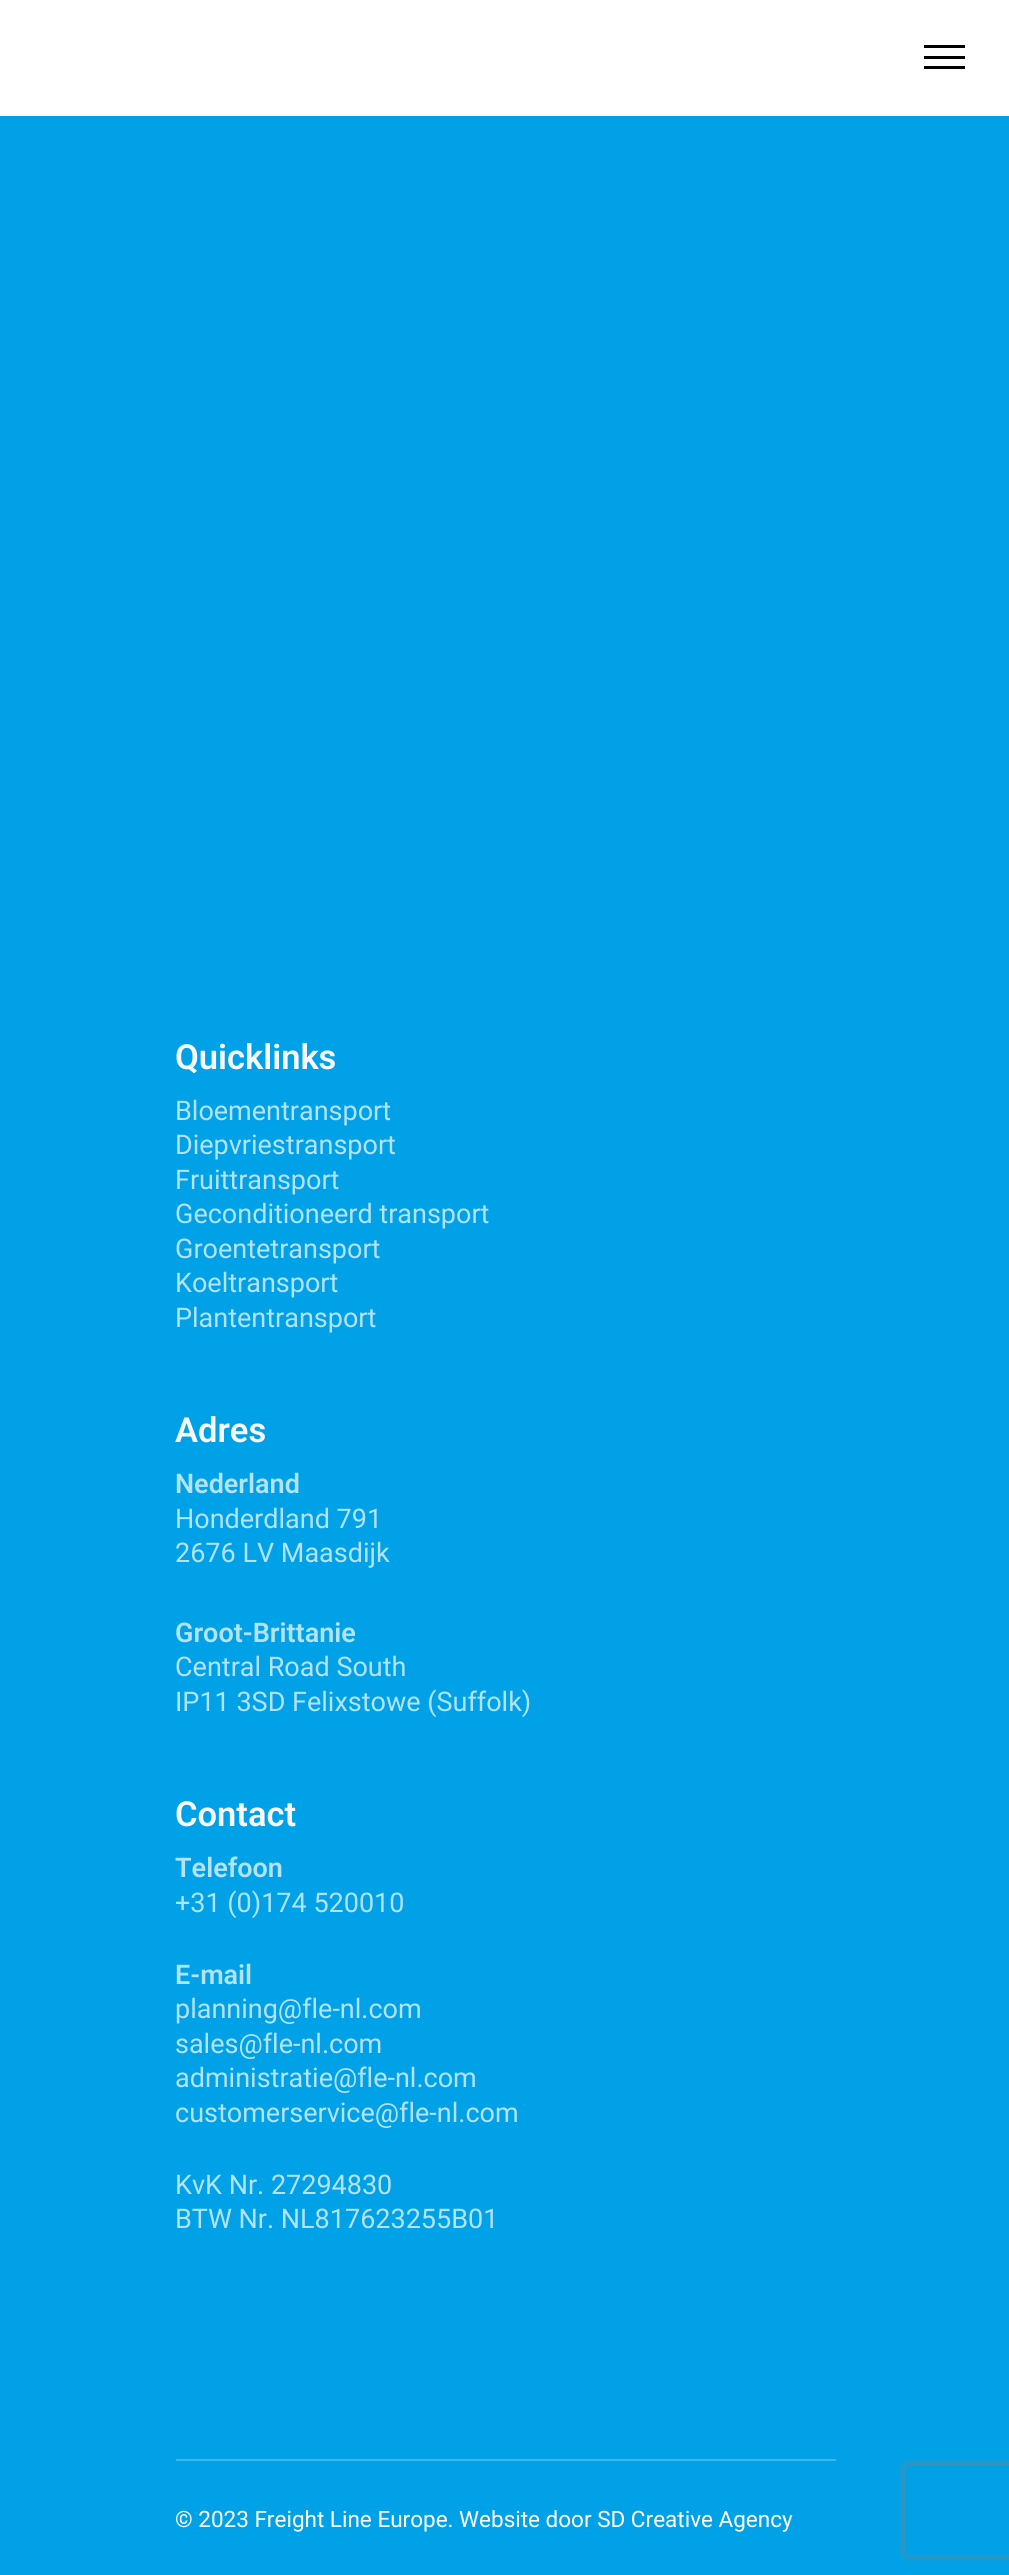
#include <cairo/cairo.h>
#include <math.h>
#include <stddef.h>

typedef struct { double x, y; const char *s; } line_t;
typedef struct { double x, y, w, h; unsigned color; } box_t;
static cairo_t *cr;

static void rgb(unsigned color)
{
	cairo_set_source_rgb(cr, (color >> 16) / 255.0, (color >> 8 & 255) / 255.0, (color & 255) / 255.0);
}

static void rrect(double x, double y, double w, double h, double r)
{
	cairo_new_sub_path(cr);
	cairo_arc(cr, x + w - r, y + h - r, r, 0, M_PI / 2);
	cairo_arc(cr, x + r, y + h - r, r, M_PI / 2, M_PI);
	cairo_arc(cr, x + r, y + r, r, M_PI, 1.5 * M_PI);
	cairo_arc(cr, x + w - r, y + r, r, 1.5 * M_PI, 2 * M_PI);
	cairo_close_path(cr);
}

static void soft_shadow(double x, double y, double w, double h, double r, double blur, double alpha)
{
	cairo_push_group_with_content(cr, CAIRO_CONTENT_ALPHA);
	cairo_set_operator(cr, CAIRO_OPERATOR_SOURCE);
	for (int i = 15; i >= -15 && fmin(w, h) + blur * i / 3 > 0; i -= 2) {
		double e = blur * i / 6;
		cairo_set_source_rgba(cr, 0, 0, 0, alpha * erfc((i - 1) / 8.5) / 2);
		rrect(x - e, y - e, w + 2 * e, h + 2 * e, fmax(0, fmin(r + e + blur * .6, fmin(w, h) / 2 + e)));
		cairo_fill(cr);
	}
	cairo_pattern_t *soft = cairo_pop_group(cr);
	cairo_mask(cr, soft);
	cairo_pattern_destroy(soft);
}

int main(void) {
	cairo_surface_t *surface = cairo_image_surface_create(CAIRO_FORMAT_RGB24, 1009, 2575);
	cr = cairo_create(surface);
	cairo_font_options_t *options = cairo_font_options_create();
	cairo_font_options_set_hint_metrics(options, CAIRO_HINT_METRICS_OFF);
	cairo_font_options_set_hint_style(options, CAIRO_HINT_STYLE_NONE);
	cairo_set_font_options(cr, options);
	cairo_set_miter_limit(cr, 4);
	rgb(0xffffff);
	cairo_paint(cr);
	{
		static const box_t items[] = {
			{924, 45, 41, 3, 0x000000},
			{924, 56, 41, 3, 0x000000},
			{924, 66, 41, 3, 0x000000},
			{0, 116, 1009, 2459, 0x00a1e6},
			{176, 2459, 660, 2, 0x3bb7ec},
		};
		for (size_t i = 0; i < sizeof items / sizeof *items; i++) {
			rgb(items[i].color);
			cairo_rectangle(cr, items[i].x, items[i].y, items[i].w, items[i].h);
			cairo_fill(cr);
		}
	}
	cairo_save(cr);
	cairo_set_fill_rule(cr, CAIRO_FILL_RULE_EVEN_ODD);
	cairo_new_path(cr);
	cairo_move_to(cr, 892, 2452);
	cairo_line_to(cr, 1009, 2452);
	cairo_line_to(cr, 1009, 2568);
	cairo_line_to(cr, 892, 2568);
	cairo_close_path(cr);
	cairo_move_to(cr, 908, 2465);
	cairo_line_to(cr, 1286, 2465);
	cairo_curve_to(cr, 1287.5, 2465, 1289, 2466.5, 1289, 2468);
	cairo_line_to(cr, 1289, 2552);
	cairo_curve_to(cr, 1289, 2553.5, 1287.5, 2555, 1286, 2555);
	cairo_line_to(cr, 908, 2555);
	cairo_curve_to(cr, 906.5, 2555, 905, 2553.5, 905, 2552);
	cairo_line_to(cr, 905, 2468);
	cairo_curve_to(cr, 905, 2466.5, 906.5, 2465, 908, 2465);
	cairo_close_path(cr);
	cairo_clip(cr);
	rgb(0x808080);
	soft_shadow(905, 2465, 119, 90, 3, 4, 1);
	cairo_restore(cr);
	cairo_select_font_face(cr, "Roboto SemiBold", CAIRO_FONT_SLANT_NORMAL, CAIRO_FONT_WEIGHT_NORMAL);
	cairo_set_font_size(cr, 34.5);
	rgb(0xf8f8f8);
	cairo_move_to(cr, 175, 1069);
	cairo_show_text(cr, "Quicklinks");
	cairo_select_font_face(cr, "Roboto", CAIRO_FONT_SLANT_NORMAL, CAIRO_FONT_WEIGHT_NORMAL);
	cairo_set_font_size(cr, 27);
	rgb(0xb3e3f8);
	{
		static const line_t items[] = {
			{175, 1120, "Bloementransport"},
			{175, 1154, "Diepvriestransport"},
			{175, 1189, "Fruittransport"},
			{175, 1223, "Geconditioneerd transport"},
			{175, 1258, "Groentetransport"},
			{175, 1292, "Koeltransport"},
			{175, 1327, "Plantentransport"},
		};
		for (size_t i = 0; i < sizeof items / sizeof *items; i++) {
			cairo_move_to(cr, items[i].x, items[i].y);
			cairo_show_text(cr, items[i].s);
		}
	}
	cairo_select_font_face(cr, "Roboto SemiBold", CAIRO_FONT_SLANT_NORMAL, CAIRO_FONT_WEIGHT_NORMAL);
	cairo_set_font_size(cr, 34.5);
	rgb(0xf8f8f8);
	cairo_move_to(cr, 175, 1442);
	cairo_show_text(cr, "Adres");
	cairo_set_font_size(cr, 27);
	rgb(0xb3e3f8);
	cairo_move_to(cr, 175, 1493);
	cairo_show_text(cr, "Nederland");
	cairo_select_font_face(cr, "Roboto", CAIRO_FONT_SLANT_NORMAL, CAIRO_FONT_WEIGHT_NORMAL);
	cairo_move_to(cr, 175, 1528);
	cairo_show_text(cr, "Honderdland 791");
	cairo_move_to(cr, 175, 1562);
	cairo_show_text(cr, "2676 LV Maasdijk");
	cairo_select_font_face(cr, "Roboto SemiBold", CAIRO_FONT_SLANT_NORMAL, CAIRO_FONT_WEIGHT_NORMAL);
	cairo_move_to(cr, 175, 1642);
	cairo_show_text(cr, "Groot-Brittanie");
	cairo_select_font_face(cr, "Roboto", CAIRO_FONT_SLANT_NORMAL, CAIRO_FONT_WEIGHT_NORMAL);
	cairo_move_to(cr, 175, 1676);
	cairo_show_text(cr, "Central Road South");
	cairo_move_to(cr, 175, 1711);
	cairo_show_text(cr, "IP11 3SD Felixstowe (Suffolk)");
	cairo_select_font_face(cr, "Roboto SemiBold", CAIRO_FONT_SLANT_NORMAL, CAIRO_FONT_WEIGHT_NORMAL);
	cairo_set_font_size(cr, 34.5);
	rgb(0xf8f8f8);
	cairo_move_to(cr, 175, 1826);
	cairo_show_text(cr, "Contact");
	cairo_set_font_size(cr, 27);
	rgb(0xb3e3f8);
	cairo_move_to(cr, 175, 1877);
	cairo_show_text(cr, "Telefoon");
	cairo_select_font_face(cr, "Roboto", CAIRO_FONT_SLANT_NORMAL, CAIRO_FONT_WEIGHT_NORMAL);
	cairo_move_to(cr, 175, 1912);
	cairo_show_text(cr, "+31 (0)174 520010");
	cairo_select_font_face(cr, "Roboto SemiBold", CAIRO_FONT_SLANT_NORMAL, CAIRO_FONT_WEIGHT_NORMAL);
	cairo_move_to(cr, 175, 1984);
	cairo_show_text(cr, "E-mail");
	cairo_select_font_face(cr, "Roboto", CAIRO_FONT_SLANT_NORMAL, CAIRO_FONT_WEIGHT_NORMAL);
	{
		static const line_t items[] = {
			{175, 2018, "planning@fle-nl.com"},
			{175, 2053, "sales@fle-nl.com"},
			{175, 2087, "administratie@fle-nl.com"},
			{175, 2122, "customerservice@fle-nl.com"},
			{175, 2194, "KvK Nr. 27294830"},
			{175, 2228, "BTW Nr. NL817623255B01"},
		};
		for (size_t i = 0; i < sizeof items / sizeof *items; i++) {
			cairo_move_to(cr, items[i].x, items[i].y);
			cairo_show_text(cr, items[i].s);
		}
	}
	cairo_set_font_size(cr, 22.5);
	rgb(0xffffff);
	cairo_move_to(cr, 175, 2527);
	cairo_show_text(cr, "© 2023 Freight Line Europe. Website door SD Creative Agency");
	cairo_surface_write_to_png(surface, "page.png");
	cairo_font_options_destroy(options);
	cairo_destroy(cr);
	cairo_surface_destroy(surface);
	return 0;
}
